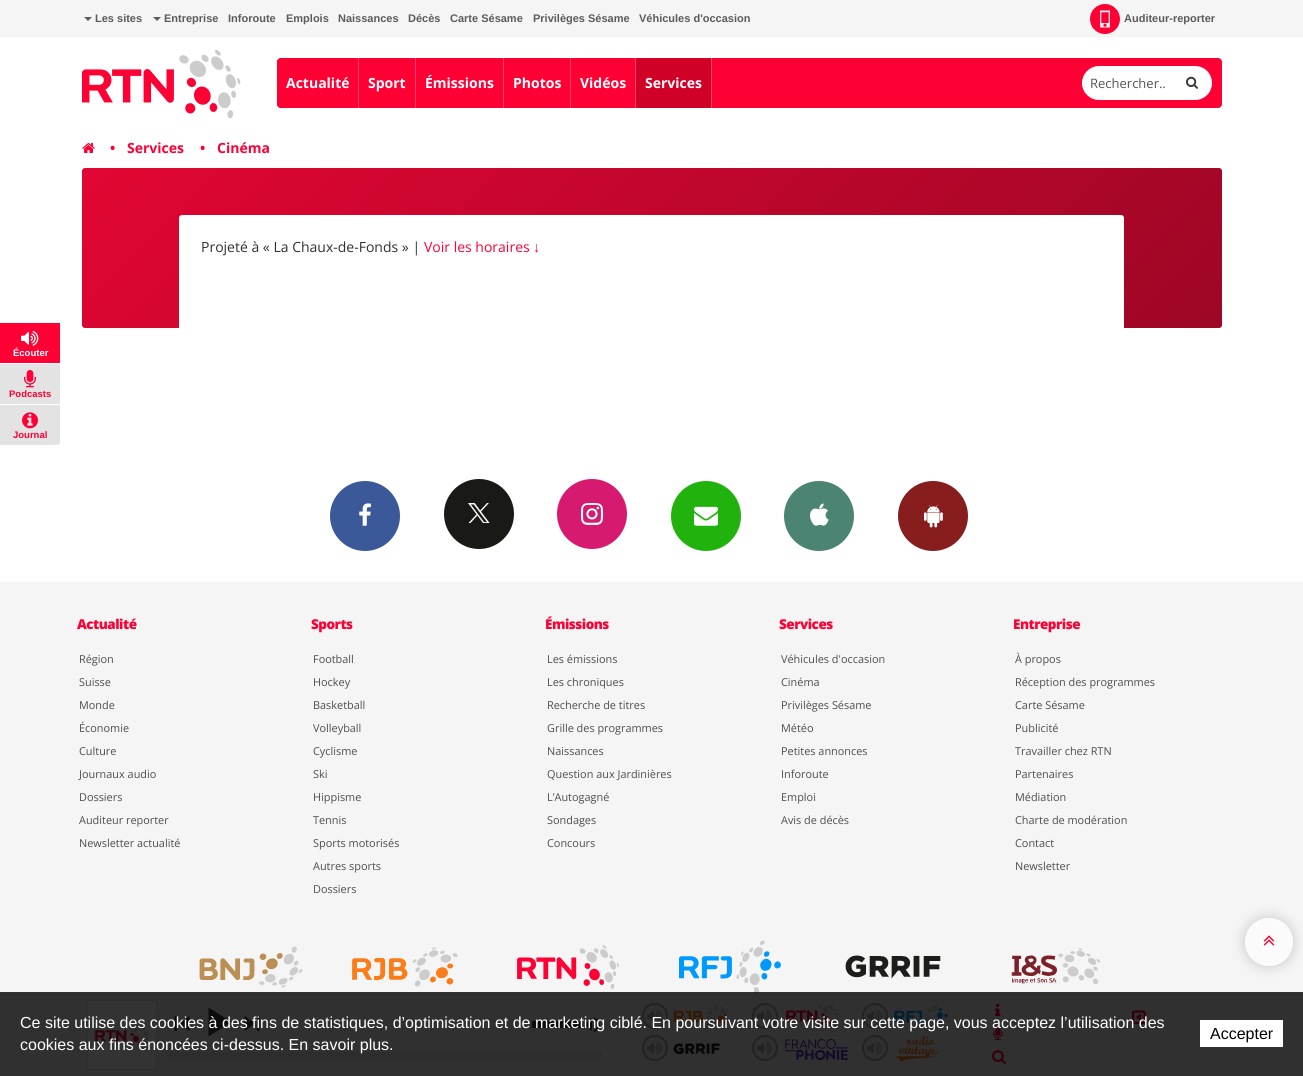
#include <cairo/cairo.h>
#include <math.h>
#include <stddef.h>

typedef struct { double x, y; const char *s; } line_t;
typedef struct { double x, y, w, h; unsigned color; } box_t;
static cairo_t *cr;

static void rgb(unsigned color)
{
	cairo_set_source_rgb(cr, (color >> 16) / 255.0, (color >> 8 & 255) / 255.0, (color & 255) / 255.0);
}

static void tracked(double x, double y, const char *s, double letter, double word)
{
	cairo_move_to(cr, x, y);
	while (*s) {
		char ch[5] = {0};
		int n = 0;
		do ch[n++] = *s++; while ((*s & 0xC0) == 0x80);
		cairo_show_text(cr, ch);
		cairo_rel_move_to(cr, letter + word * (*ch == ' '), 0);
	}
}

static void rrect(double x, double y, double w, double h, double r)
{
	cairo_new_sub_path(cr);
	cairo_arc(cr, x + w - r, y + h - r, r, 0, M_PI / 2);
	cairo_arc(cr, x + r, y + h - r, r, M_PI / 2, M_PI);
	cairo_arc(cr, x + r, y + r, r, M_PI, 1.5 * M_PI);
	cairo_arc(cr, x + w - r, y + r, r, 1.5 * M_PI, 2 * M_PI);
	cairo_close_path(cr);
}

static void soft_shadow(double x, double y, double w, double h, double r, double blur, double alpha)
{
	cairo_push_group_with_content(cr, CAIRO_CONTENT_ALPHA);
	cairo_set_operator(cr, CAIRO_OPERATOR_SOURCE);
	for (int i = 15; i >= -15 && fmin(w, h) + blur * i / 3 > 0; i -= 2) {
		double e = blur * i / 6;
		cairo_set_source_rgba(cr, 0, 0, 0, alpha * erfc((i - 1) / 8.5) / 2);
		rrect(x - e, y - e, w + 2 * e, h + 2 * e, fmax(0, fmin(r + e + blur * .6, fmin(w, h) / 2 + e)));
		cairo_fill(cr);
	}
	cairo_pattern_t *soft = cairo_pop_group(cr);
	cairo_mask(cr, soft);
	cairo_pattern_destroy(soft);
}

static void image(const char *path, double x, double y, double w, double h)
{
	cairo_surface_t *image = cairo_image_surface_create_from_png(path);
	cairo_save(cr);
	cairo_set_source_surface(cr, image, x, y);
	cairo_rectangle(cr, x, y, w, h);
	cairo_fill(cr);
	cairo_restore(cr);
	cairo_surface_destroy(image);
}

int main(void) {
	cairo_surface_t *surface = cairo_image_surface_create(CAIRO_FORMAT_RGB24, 1303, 1076);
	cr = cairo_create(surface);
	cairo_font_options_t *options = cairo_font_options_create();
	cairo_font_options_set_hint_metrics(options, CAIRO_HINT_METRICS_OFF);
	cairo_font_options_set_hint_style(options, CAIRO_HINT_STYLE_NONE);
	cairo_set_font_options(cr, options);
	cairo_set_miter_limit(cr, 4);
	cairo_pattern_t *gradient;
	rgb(0xffffff);
	cairo_paint(cr);
	rgb(0xf5f5f5);
	cairo_rectangle(cr, 0, 0, 1303, 37);
	cairo_fill(cr);
	rgb(0x5b5b5b);
	cairo_new_path(cr);
	cairo_move_to(cr, 84, 17);
	cairo_line_to(cr, 92, 17);
	cairo_line_to(cr, 88, 21);
	cairo_close_path(cr);
	cairo_fill(cr);
	cairo_new_path(cr);
	cairo_move_to(cr, 153, 17);
	cairo_line_to(cr, 161, 17);
	cairo_line_to(cr, 157, 21);
	cairo_close_path(cr);
	cairo_fill(cr);
	image("img/1.png", 1090, 4, 30, 30);
	image("img/2.png", 82, 49, 159, 70);
	rgb(0xfe0034);
	rrect(277, 58, 945, 50, 4);
	cairo_fill(cr);
	rgb(0xf84368);
	cairo_rectangle(cr, 358, 58, 1, 50);
	cairo_fill(cr);
	rgb(0xfe0034);
	cairo_new_path(cr);
	cairo_move_to(cr, 281, 58);
	cairo_line_to(cr, 358, 58);
	cairo_line_to(cr, 358, 108);
	cairo_line_to(cr, 281, 108);
	cairo_curve_to(cr, 279, 108, 277, 106, 277, 104);
	cairo_line_to(cr, 277, 62);
	cairo_curve_to(cr, 277, 60, 279, 58, 281, 58);
	cairo_close_path(cr);
	cairo_fill(cr);
	{
		static const box_t items[] = {
			{415, 58, 1, 50, 0xf84368},
			{503, 58, 1, 50, 0xf84368},
			{570, 58, 1, 50, 0xf84368},
			{635, 58, 1, 50, 0xf84368},
			{711, 58, 1, 50, 0xf84368},
			{636, 58, 75, 50, 0xd00027},
		};
		for (size_t i = 0; i < sizeof items / sizeof *items; i++) {
			rgb(items[i].color);
			cairo_rectangle(cr, items[i].x, items[i].y, items[i].w, items[i].h);
			cairo_fill(cr);
		}
	}
	rgb(0xffffff);
	cairo_new_path(cr);
	cairo_move_to(cr, 1099, 66.5);
	cairo_line_to(cr, 1173.5, 66.5);
	cairo_line_to(cr, 1173.5, 99.5);
	cairo_line_to(cr, 1099, 99.5);
	cairo_curve_to(cr, 1090, 99.5, 1082.5, 92, 1082.5, 83);
	cairo_curve_to(cr, 1082.5, 74, 1090, 66.5, 1099, 66.5);
	cairo_close_path(cr);
	cairo_fill_preserve(cr);
	cairo_set_line_width(cr, 1);
	cairo_stroke(cr);
	cairo_new_path(cr);
	cairo_move_to(cr, 1173, 66);
	cairo_line_to(cr, 1195, 66);
	cairo_curve_to(cr, 1204.5, 66, 1212, 73.5, 1212, 83);
	cairo_curve_to(cr, 1212, 92.5, 1204.5, 100, 1195, 100);
	cairo_line_to(cr, 1173, 100);
	cairo_close_path(cr);
	cairo_fill(cr);
	image("img/3.png", 1186, 76, 12, 13);
	rgb(0xfe0034);
	cairo_rectangle(cr, 0, 323, 60, 40);
	cairo_fill(cr);
	image("img/4.png", 21, 331, 18, 15);
	rgb(0xe3e3e3);
	cairo_rectangle(cr, 0, 364, 60, 40);
	cairo_fill(cr);
	image("img/5.png", 24, 370, 12, 18);
	cairo_new_path(cr);
	cairo_move_to(cr, 0, 405);
	cairo_line_to(cr, 60, 405);
	cairo_line_to(cr, 60, 442);
	cairo_curve_to(cr, 60, 443.5, 58.5, 445, 57, 445);
	cairo_line_to(cr, 0, 445);
	cairo_close_path(cr);
	cairo_fill(cr);
	image("img/6.png", 22, 412, 16, 17);
	image("img/7.png", 82, 143, 13, 10);
	gradient = cairo_pattern_create_linear(327, -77, 977, 573);
	cairo_pattern_add_color_stop_rgba(gradient, 0, 0.886, 0.024, 0.2, 1);
	cairo_pattern_add_color_stop_rgba(gradient, 1, 0.616, 0.024, 0.145, 1);
	cairo_set_source(cr, gradient);
	cairo_pattern_destroy(gradient);
	rrect(82, 168, 1140, 160, 3);
	cairo_fill(cr);
	rgb(0xffffff);
	rrect(179, 215, 945, 124, 3);
	cairo_fill(cr);
	rgb(0x3b5998);
	cairo_arc(cr, 365, 516, 35, 0, 2 * M_PI);
	cairo_fill(cr);
	image("img/8.png", 359, 503, 12, 23);
	rgb(0x191915);
	cairo_arc(cr, 479, 514, 35, 0, 2 * M_PI);
	cairo_fill(cr);
	image("img/9.png", 468, 503, 22, 20);
	rgb(0xd51a6f);
	cairo_arc(cr, 592, 514, 35, 0, 2 * M_PI);
	cairo_fill(cr);
	image("img/10.png", 581, 503, 22, 22);
	rgb(0x21b20d);
	cairo_arc(cr, 706, 516, 35, 0, 2 * M_PI);
	cairo_fill(cr);
	image("img/11.png", 694, 506, 24, 20);
	rgb(0x4b8472);
	cairo_arc(cr, 819, 516, 35, 0, 2 * M_PI);
	cairo_fill(cr);
	image("img/12.png", 810, 503, 19, 23);
	rgb(0x871d1d);
	cairo_arc(cr, 933, 516, 35, 0, 2 * M_PI);
	cairo_fill(cr);
	image("img/13.png", 924, 505, 19, 23);
	rgb(0xf5f5f5);
	cairo_rectangle(cr, 0, 582, 1303, 412);
	cairo_fill(cr);
	image("img/14.png", 199, 946, 104, 42);
	image("img/15.png", 352, 947, 106, 40);
	image("img/16.png", 517, 945, 102, 44);
	image("img/17.png", 679, 940, 102, 54);
	image("img/18.png", 845, 955, 96, 24);
	image("img/19.png", 1011, 948, 90, 37);
	cairo_save(cr);
	cairo_set_fill_rule(cr, CAIRO_FILL_RULE_EVEN_ODD);
	cairo_new_path(cr);
	cairo_move_to(cr, 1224, 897);
	cairo_line_to(cr, 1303, 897);
	cairo_line_to(cr, 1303, 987);
	cairo_line_to(cr, 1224, 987);
	cairo_close_path(cr);
	cairo_move_to(cr, 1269, 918);
	cairo_curve_to(cr, 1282.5, 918, 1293, 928.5, 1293, 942);
	cairo_curve_to(cr, 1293, 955.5, 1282.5, 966, 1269, 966);
	cairo_curve_to(cr, 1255.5, 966, 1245, 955.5, 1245, 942);
	cairo_curve_to(cr, 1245, 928.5, 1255.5, 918, 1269, 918);
	cairo_close_path(cr);
	cairo_clip(cr);
	rgb(0x000000);
	soft_shadow(1245, 918, 48, 48, 24, 6.5, 0.2);
	cairo_restore(cr);
	cairo_set_source_rgba(cr, 1, 1, 1, 0.6);
	cairo_arc(cr, 1269, 942, 24, 0, 2 * M_PI);
	cairo_fill(cr);
	image("img/20.png", 1263, 935, 12, 11);
	{
		static const box_t items[] = {
			{0, 995, 1303, 80, 0xf0f0f0},
			{0, 994, 1303, 1, 0xe0e0e0},
			{0, 1075, 1303, 1, 0xe0e0e0},
		};
		for (size_t i = 0; i < sizeof items / sizeof *items; i++) {
			rgb(items[i].color);
			cairo_rectangle(cr, items[i].x, items[i].y, items[i].w, items[i].h);
			cairo_fill(cr);
		}
	}
	cairo_rectangle(cr, 87.5, 1000.5, 69, 69);
	cairo_stroke(cr);
	image("img/21.png", 88, 1001, 68, 68);
	image("img/22.png", 174, 1016, 16, 15);
	rgb(0x3c3c3c);
	cairo_new_path(cr);
	cairo_move_to(cr, 208.5, 1007.5);
	cairo_line_to(cr, 231.5, 1022);
	cairo_line_to(cr, 208.5, 1036.5);
	cairo_close_path(cr);
	cairo_fill(cr);
	image("img/23.png", 244, 1016, 16, 15);
	cairo_rectangle(cr, 532, 1021, 50, 7);
	cairo_fill(cr);
	image("img/24.png", 584, 1017, 16, 15);
	cairo_rectangle(cr, 167.5, 1052.5, 434, 6);
	rgb(0xe3e3e3);
	cairo_stroke(cr);
	cairo_rectangle(cr, 168, 1053, 433, 5);
	cairo_fill(cr);
	image("img/25.png", 673, 1005, 57, 21);
	cairo_arc(cr, 655, 1016, 12, 0, 2 * M_PI);
	rgb(0xa9a9a9);
	cairo_set_line_width(cr, 2);
	cairo_stroke(cr);
	image("img/26.png", 647, 1010, 15, 13);
	image("img/27.png", 752, 1003, 88, 24);
	rgb(0xf0f0f0);
	cairo_arc(cr, 765, 1016, 12, 0, 2 * M_PI);
	cairo_fill_preserve(cr);
	rgb(0xa9a9a9);
	cairo_stroke(cr);
	image("img/26.png", 757, 1010, 15, 13);
	image("img/28.png", 894, 1002, 54, 29);
	cairo_arc(cr, 875, 1016, 12, 0, 2 * M_PI);
	cairo_stroke(cr);
	image("img/26.png", 867, 1010, 15, 13);
	image("img/29.png", 673, 1043, 47, 12);
	cairo_arc(cr, 655, 1048, 12, 0, 2 * M_PI);
	cairo_stroke(cr);
	image("img/26.png", 647, 1042, 15, 13);
	image("img/30.png", 752, 1039, 96, 22);
	rgb(0xf0f0f0);
	cairo_arc(cr, 765, 1048, 12, 0, 2 * M_PI);
	cairo_fill_preserve(cr);
	rgb(0xa9a9a9);
	cairo_stroke(cr);
	image("img/26.png", 757, 1042, 15, 13);
	image("img/31.png", 895, 1036, 43, 26);
	cairo_arc(cr, 875, 1048, 12, 0, 2 * M_PI);
	cairo_stroke(cr);
	image("img/26.png", 867, 1042, 15, 13);
	image("img/32.png", 995, 1004, 6, 12);
	image("img/33.png", 993, 1026, 10, 15);
	image("img/34.png", 992, 1050, 14, 15);
	image("img/35.png", 1132, 1010, 14, 15);
	cairo_set_source_rgba(cr, 0, 0, 0, 0.8);
	cairo_rectangle(cr, 0, 992, 1303, 84);
	cairo_fill(cr);
	rgb(0xffffff);
	cairo_rectangle(cr, 1200, 1020, 83, 27);
	cairo_fill(cr);
	cairo_select_font_face(cr, "Liberation Sans", CAIRO_FONT_SLANT_NORMAL, CAIRO_FONT_WEIGHT_BOLD);
	cairo_set_font_size(cr, 11);
	rgb(0x5b5b5b);
	{
		static const line_t items[] = {
			{95, 22, "Les sites"},
			{164, 22, "Entreprise"},
			{228, 22, "Inforoute"},
			{286, 22, "Emplois"},
			{338, 22, "Naissances"},
			{408, 22, "Décès"},
			{450, 22, "Carte Sésame"},
			{533, 22, "Privilèges Sésame"},
			{639, 22, "Véhicules d'occasion"},
			{1124, 22, "Auditeur-reporter"},
		};
		for (size_t i = 0; i < sizeof items / sizeof *items; i++) {
			cairo_move_to(cr, items[i].x, items[i].y);
			cairo_show_text(cr, items[i].s);
		}
	}
	cairo_select_font_face(cr, "Open Sans", CAIRO_FONT_SLANT_NORMAL, CAIRO_FONT_WEIGHT_BOLD);
	cairo_set_font_size(cr, 14);
	rgb(0xffffff);
	{
		static const line_t items[] = {
			{286, 88, "Actualité"},
			{368, 88, "Sport"},
			{425, 88, "Émissions"},
			{513, 88, "Photos"},
			{580, 88, "Vidéos"},
			{645, 88, "Services"},
		};
		for (size_t i = 0; i < sizeof items / sizeof *items; i++) {
			cairo_move_to(cr, items[i].x, items[i].y);
			cairo_show_text(cr, items[i].s);
		}
	}
	cairo_select_font_face(cr, "Open Sans", CAIRO_FONT_SLANT_NORMAL, CAIRO_FONT_WEIGHT_NORMAL);
	cairo_set_font_size(cr, 13);
	rgb(0x555555);
	cairo_move_to(cr, 1090, 88);
	cairo_show_text(cr, "Rechercher..");
	cairo_select_font_face(cr, "Liberation Sans", CAIRO_FONT_SLANT_NORMAL, CAIRO_FONT_WEIGHT_BOLD);
	cairo_set_font_size(cr, 9.5);
	rgb(0xffffff);
	cairo_move_to(cr, 13, 356);
	cairo_show_text(cr, "Écouter");
	rgb(0xfe0034);
	cairo_move_to(cr, 9, 397);
	cairo_show_text(cr, "Podcasts");
	cairo_move_to(cr, 13, 438);
	cairo_show_text(cr, "Journal");
	cairo_select_font_face(cr, "Open Sans", CAIRO_FONT_SLANT_NORMAL, CAIRO_FONT_WEIGHT_BOLD);
	cairo_set_font_size(cr, 14);
	{
		static const line_t items[] = {
			{110, 153, "•"},
			{127, 153, "Services"},
			{200, 153, "•"},
			{217, 153, "Cinéma"},
		};
		for (size_t i = 0; i < sizeof items / sizeof *items; i++) {
			cairo_move_to(cr, items[i].x, items[i].y);
			cairo_show_text(cr, items[i].s);
		}
	}
	cairo_select_font_face(cr, "Open Sans", CAIRO_FONT_SLANT_NORMAL, CAIRO_FONT_WEIGHT_NORMAL);
	rgb(0x303030);
	cairo_move_to(cr, 201, 252);
	cairo_show_text(cr, "Projeté à « La Chaux-de-Fonds » |");
	rgb(0xfe0034);
	cairo_move_to(cr, 424, 252);
	cairo_show_text(cr, "Voir les horaires");
	cairo_select_font_face(cr, "Liberation Sans", CAIRO_FONT_SLANT_NORMAL, CAIRO_FONT_WEIGHT_NORMAL);
	cairo_move_to(cr, 533, 252);
	cairo_show_text(cr, "↓");
	cairo_select_font_face(cr, "Open Sans ExtraBold", CAIRO_FONT_SLANT_NORMAL, CAIRO_FONT_WEIGHT_NORMAL);
	cairo_set_font_size(cr, 13.5);
	tracked(77, 629, "Actualité", -0.5, 0);
	cairo_select_font_face(cr, "Open Sans", CAIRO_FONT_SLANT_NORMAL, CAIRO_FONT_WEIGHT_NORMAL);
	cairo_set_font_size(cr, 10.9);
	rgb(0x4e4e4e);
	{
		static const line_t items[] = {
			{79, 663, "Région"},
			{79, 686, "Suisse"},
			{79, 709, "Monde"},
			{79, 732, "Économie"},
			{79, 755, "Culture"},
			{79, 778, "Journaux audio"},
			{79, 801, "Dossiers"},
			{79, 824, "Auditeur reporter"},
			{79, 847, "Newsletter actualité"},
		};
		for (size_t i = 0; i < sizeof items / sizeof *items; i++) {
			cairo_move_to(cr, items[i].x, items[i].y);
			cairo_show_text(cr, items[i].s);
		}
	}
	cairo_select_font_face(cr, "Open Sans ExtraBold", CAIRO_FONT_SLANT_NORMAL, CAIRO_FONT_WEIGHT_NORMAL);
	cairo_set_font_size(cr, 13.5);
	rgb(0xfe0034);
	tracked(311, 629, "Sports", -0.5, 0);
	cairo_select_font_face(cr, "Open Sans", CAIRO_FONT_SLANT_NORMAL, CAIRO_FONT_WEIGHT_NORMAL);
	cairo_set_font_size(cr, 10.9);
	rgb(0x4e4e4e);
	{
		static const line_t items[] = {
			{313, 663, "Football"},
			{313, 686, "Hockey"},
			{313, 709, "Basketball"},
			{313, 732, "Volleyball"},
			{313, 755, "Cyclisme"},
			{313, 778, "Ski"},
			{313, 801, "Hippisme"},
			{313, 824, "Tennis"},
			{313, 847, "Sports motorisés"},
			{313, 870, "Autres sports"},
			{313, 893, "Dossiers"},
		};
		for (size_t i = 0; i < sizeof items / sizeof *items; i++) {
			cairo_move_to(cr, items[i].x, items[i].y);
			cairo_show_text(cr, items[i].s);
		}
	}
	cairo_select_font_face(cr, "Open Sans ExtraBold", CAIRO_FONT_SLANT_NORMAL, CAIRO_FONT_WEIGHT_NORMAL);
	cairo_set_font_size(cr, 13.5);
	rgb(0xfe0034);
	tracked(545, 629, "Émissions", -0.5, 0);
	cairo_select_font_face(cr, "Open Sans", CAIRO_FONT_SLANT_NORMAL, CAIRO_FONT_WEIGHT_NORMAL);
	cairo_set_font_size(cr, 10.9);
	rgb(0x4e4e4e);
	{
		static const line_t items[] = {
			{547, 663, "Les émissions"},
			{547, 686, "Les chroniques"},
			{547, 709, "Recherche de titres"},
			{547, 732, "Grille des programmes"},
			{547, 755, "Naissances"},
			{547, 778, "Question aux Jardinières"},
			{547, 801, "L’Autogagné"},
			{547, 824, "Sondages"},
			{547, 847, "Concours"},
		};
		for (size_t i = 0; i < sizeof items / sizeof *items; i++) {
			cairo_move_to(cr, items[i].x, items[i].y);
			cairo_show_text(cr, items[i].s);
		}
	}
	cairo_select_font_face(cr, "Open Sans ExtraBold", CAIRO_FONT_SLANT_NORMAL, CAIRO_FONT_WEIGHT_NORMAL);
	cairo_set_font_size(cr, 13.5);
	rgb(0xfe0034);
	tracked(779, 629, "Services", -0.5, 0);
	cairo_select_font_face(cr, "Open Sans", CAIRO_FONT_SLANT_NORMAL, CAIRO_FONT_WEIGHT_NORMAL);
	cairo_set_font_size(cr, 10.9);
	rgb(0x4e4e4e);
	{
		static const line_t items[] = {
			{781, 663, "Véhicules d'occasion"},
			{781, 686, "Cinéma"},
			{781, 709, "Privilèges Sésame"},
			{781, 732, "Météo"},
			{781, 755, "Petites annonces"},
			{781, 778, "Inforoute"},
			{781, 801, "Emploi"},
			{781, 824, "Avis de décès"},
		};
		for (size_t i = 0; i < sizeof items / sizeof *items; i++) {
			cairo_move_to(cr, items[i].x, items[i].y);
			cairo_show_text(cr, items[i].s);
		}
	}
	cairo_select_font_face(cr, "Open Sans ExtraBold", CAIRO_FONT_SLANT_NORMAL, CAIRO_FONT_WEIGHT_NORMAL);
	cairo_set_font_size(cr, 13.5);
	rgb(0xfe0034);
	tracked(1013, 629, "Entreprise", -0.5, 0);
	cairo_select_font_face(cr, "Open Sans", CAIRO_FONT_SLANT_NORMAL, CAIRO_FONT_WEIGHT_NORMAL);
	cairo_set_font_size(cr, 10.9);
	rgb(0x4e4e4e);
	{
		static const line_t items[] = {
			{1015, 663, "À propos"},
			{1015, 686, "Réception des programmes"},
			{1015, 709, "Carte Sésame"},
			{1015, 732, "Publicité"},
			{1015, 755, "Travailler chez RTN"},
			{1015, 778, "Partenaires"},
			{1015, 801, "Médiation"},
			{1015, 824, "Charte de modération"},
			{1015, 847, "Contact"},
			{1015, 870, "Newsletter"},
		};
		for (size_t i = 0; i < sizeof items / sizeof *items; i++) {
			cairo_move_to(cr, items[i].x, items[i].y);
			cairo_show_text(cr, items[i].s);
		}
	}
	cairo_select_font_face(cr, "Liberation Sans", CAIRO_FONT_SLANT_NORMAL, CAIRO_FONT_WEIGHT_NORMAL);
	cairo_set_font_size(cr, 16);
	rgb(0xffffff);
	cairo_move_to(cr, 20, 1028);
	cairo_show_text(cr, "Ce site utilise des cookies à des fins de statistiques, d’optimisation et de marketing ciblé. En poursuivant votre visite sur cette page, vous acceptez l’utilisation des");
	cairo_move_to(cr, 20, 1050);
	cairo_show_text(cr, "cookies aux fins énoncées ci-dessus. En savoir plus.");
	rgb(0x000000);
	cairo_move_to(cr, 1210, 1039);
	cairo_show_text(cr, "Accepter");
	cairo_surface_write_to_png(surface, "page.png");
	cairo_font_options_destroy(options);
	cairo_destroy(cr);
	cairo_surface_destroy(surface);
	return 0;
}
